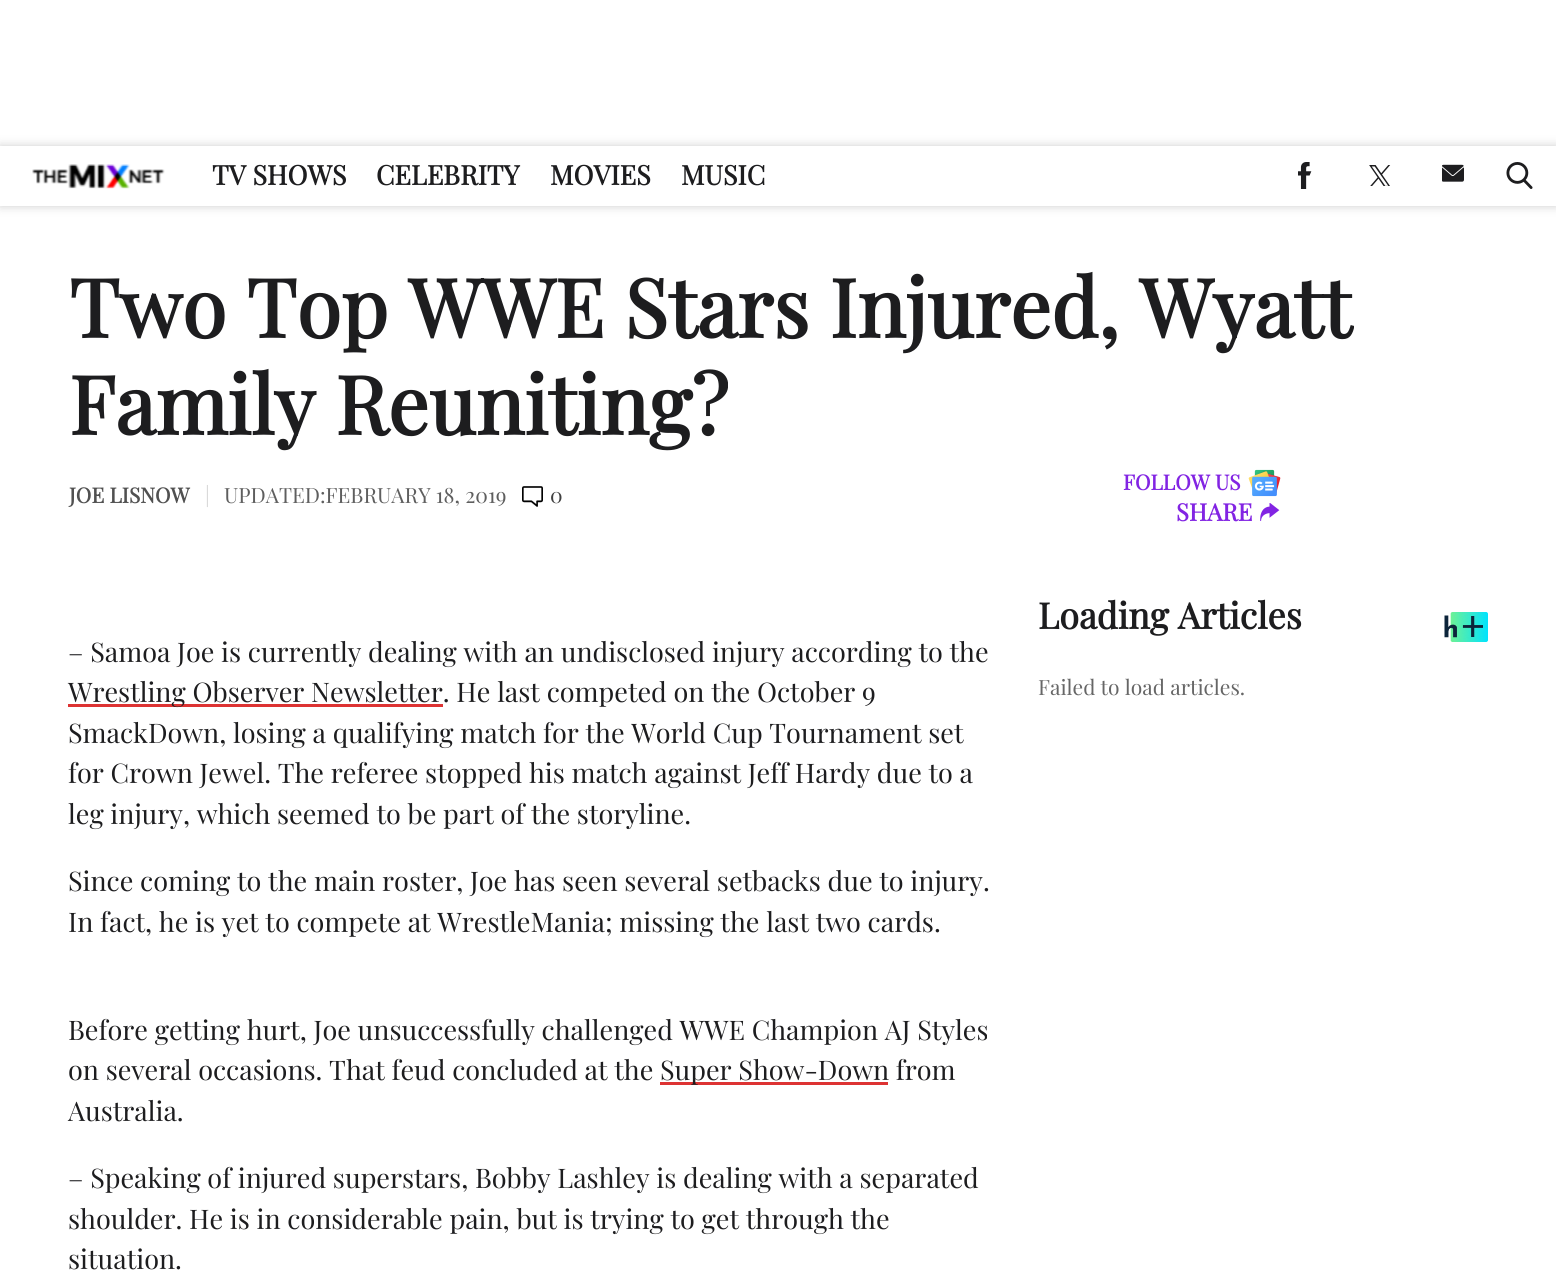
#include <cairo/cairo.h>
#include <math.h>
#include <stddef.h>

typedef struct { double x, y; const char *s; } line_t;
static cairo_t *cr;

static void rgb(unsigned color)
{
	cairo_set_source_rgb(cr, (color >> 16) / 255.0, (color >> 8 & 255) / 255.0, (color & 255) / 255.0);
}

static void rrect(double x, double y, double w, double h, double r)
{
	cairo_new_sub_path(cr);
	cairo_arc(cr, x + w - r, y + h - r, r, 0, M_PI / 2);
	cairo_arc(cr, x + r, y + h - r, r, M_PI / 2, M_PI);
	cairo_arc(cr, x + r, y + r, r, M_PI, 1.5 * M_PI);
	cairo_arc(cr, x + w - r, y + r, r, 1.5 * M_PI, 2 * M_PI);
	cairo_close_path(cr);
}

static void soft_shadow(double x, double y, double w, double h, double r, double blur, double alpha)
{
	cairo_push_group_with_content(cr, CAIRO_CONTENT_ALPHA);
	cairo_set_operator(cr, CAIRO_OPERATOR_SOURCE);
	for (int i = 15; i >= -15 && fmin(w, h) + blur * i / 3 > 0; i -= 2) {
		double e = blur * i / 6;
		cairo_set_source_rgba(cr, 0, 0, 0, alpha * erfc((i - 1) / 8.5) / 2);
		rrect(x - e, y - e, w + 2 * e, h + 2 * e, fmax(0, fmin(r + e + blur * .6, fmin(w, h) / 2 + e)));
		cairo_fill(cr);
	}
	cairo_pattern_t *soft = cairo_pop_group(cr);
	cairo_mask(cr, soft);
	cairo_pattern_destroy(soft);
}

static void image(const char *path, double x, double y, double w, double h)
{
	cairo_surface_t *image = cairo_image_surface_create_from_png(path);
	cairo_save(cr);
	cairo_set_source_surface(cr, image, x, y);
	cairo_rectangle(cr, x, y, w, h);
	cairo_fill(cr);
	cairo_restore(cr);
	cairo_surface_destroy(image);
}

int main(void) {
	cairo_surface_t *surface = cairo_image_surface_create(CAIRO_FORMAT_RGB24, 1556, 1271);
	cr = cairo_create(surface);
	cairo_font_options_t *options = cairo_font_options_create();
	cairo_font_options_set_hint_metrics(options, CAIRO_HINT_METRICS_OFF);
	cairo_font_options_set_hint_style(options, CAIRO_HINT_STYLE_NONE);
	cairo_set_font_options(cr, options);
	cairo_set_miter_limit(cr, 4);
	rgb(0xffffff);
	cairo_paint(cr);
	rgb(0x000000);
	soft_shadow(0, 146, 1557, 60, 0, 5, 0.2);
	rgb(0xffffff);
	cairo_rectangle(cr, 0, 146, 1556, 60);
	cairo_fill(cr);
	image("img/1.png", 32, 164, 133, 25);
	image("img/2.png", 1298, 162, 14, 27);
	image("img/3.png", 1369, 165, 22, 21);
	image("img/4.png", 1442, 164, 22, 18);
	image("img/5.png", 1506, 162, 27, 27);
	image("img/6.png", 522, 486, 21, 21);
	image("img/7.png", 1248, 469, 33, 28);
	image("img/8.png", 1260, 503, 20, 18);
	rgb(0xdd3333);
	cairo_rectangle(cr, 68, 704, 375, 3);
	cairo_fill(cr);
	cairo_rectangle(cr, 660, 1082, 228, 3);
	cairo_fill(cr);
	image("img/9.png", 1444, 612, 44, 30);
	cairo_select_font_face(cr, "Playfair Display", CAIRO_FONT_SLANT_NORMAL, CAIRO_FONT_WEIGHT_BOLD);
	cairo_set_font_size(cr, 27);
	rgb(0x1d1d1f);
	{
		static const line_t items[] = {
			{212, 185, "TV SHOWS"},
			{376, 185, "CELEBRITY"},
			{550, 185, "MOVIES"},
			{681, 185, "MUSIC"},
		};
		for (size_t i = 0; i < sizeof items / sizeof *items; i++) {
			cairo_move_to(cr, items[i].x, items[i].y);
			cairo_show_text(cr, items[i].s);
		}
	}
	cairo_set_font_size(cr, 81);
	cairo_move_to(cr, 69, 338);
	cairo_show_text(cr, "Two Top WWE Stars Injured, Wyatt");
	cairo_move_to(cr, 69, 435);
	cairo_show_text(cr, "Family Reuniting?");
	cairo_set_font_size(cr, 21);
	rgb(0x505050);
	cairo_move_to(cr, 69, 503);
	cairo_show_text(cr, "JOE LISNOW");
	cairo_select_font_face(cr, "Playfair Display", CAIRO_FONT_SLANT_NORMAL, CAIRO_FONT_WEIGHT_NORMAL);
	rgb(0xcecece);
	cairo_move_to(cr, 205, 503);
	cairo_show_text(cr, "|");
	rgb(0x5e5e5e);
	cairo_move_to(cr, 224, 503);
	cairo_show_text(cr, "UPDATED:FEBRUARY 18, 2019");
	rgb(0x404040);
	cairo_move_to(cr, 550, 503);
	cairo_show_text(cr, "0");
	cairo_select_font_face(cr, "Playfair Display", CAIRO_FONT_SLANT_NORMAL, CAIRO_FONT_WEIGHT_BOLD);
	rgb(0x8224e3);
	cairo_move_to(cr, 1123, 490);
	cairo_show_text(cr, "FOLLOW US");
	cairo_set_font_size(cr, 24);
	cairo_move_to(cr, 1176, 521);
	cairo_show_text(cr, "SHARE");
	cairo_select_font_face(cr, "Playfair Display", CAIRO_FONT_SLANT_NORMAL, CAIRO_FONT_WEIGHT_NORMAL);
	cairo_set_font_size(cr, 27);
	rgb(0x1d1d1f);
	{
		static const line_t items[] = {
			{68, 662, "– Samoa Joe is currently dealing with an undisclosed injury according to the"},
			{68, 702, "Wrestling Observer Newsletter. He last competed on the October 9"},
			{68, 743, "SmackDown, losing a qualifying match for the World Cup Tournament set"},
			{68, 783, "for Crown Jewel. The referee stopped his match against Jeff Hardy due to a"},
			{68, 824, "leg injury, which seemed to be part of the storyline."},
			{68, 891, "Since coming to the main roster, Joe has seen several setbacks due to injury."},
			{68, 932, "In fact, he is yet to compete at WrestleMania; missing the last two cards."},
			{68, 1040, "Before getting hurt, Joe unsuccessfully challenged WWE Champion AJ Styles"},
			{68, 1080, "on several occasions. That feud concluded at the"},
			{660, 1080, "Super Show-Down from"},
			{68, 1121, "Australia."},
			{68, 1188, "– Speaking of injured superstars, Bobby Lashley is dealing with a separated"},
			{68, 1229, "shoulder. He is in considerable pain, but is trying to get through the"},
			{68, 1269, "situation."},
		};
		for (size_t i = 0; i < sizeof items / sizeof *items; i++) {
			cairo_move_to(cr, items[i].x, items[i].y);
			cairo_show_text(cr, items[i].s);
		}
	}
	cairo_select_font_face(cr, "Playfair Display", CAIRO_FONT_SLANT_NORMAL, CAIRO_FONT_WEIGHT_BOLD);
	cairo_set_font_size(cr, 36);
	cairo_move_to(cr, 1038, 629);
	cairo_show_text(cr, "Loading Articles");
	cairo_select_font_face(cr, "Playfair Display", CAIRO_FONT_SLANT_NORMAL, CAIRO_FONT_WEIGHT_NORMAL);
	cairo_set_font_size(cr, 21);
	rgb(0x666666);
	cairo_move_to(cr, 1038, 695);
	cairo_show_text(cr, "Failed to load articles.");
	cairo_surface_write_to_png(surface, "page.png");
	cairo_font_options_destroy(options);
	cairo_destroy(cr);
	cairo_surface_destroy(surface);
	return 0;
}
